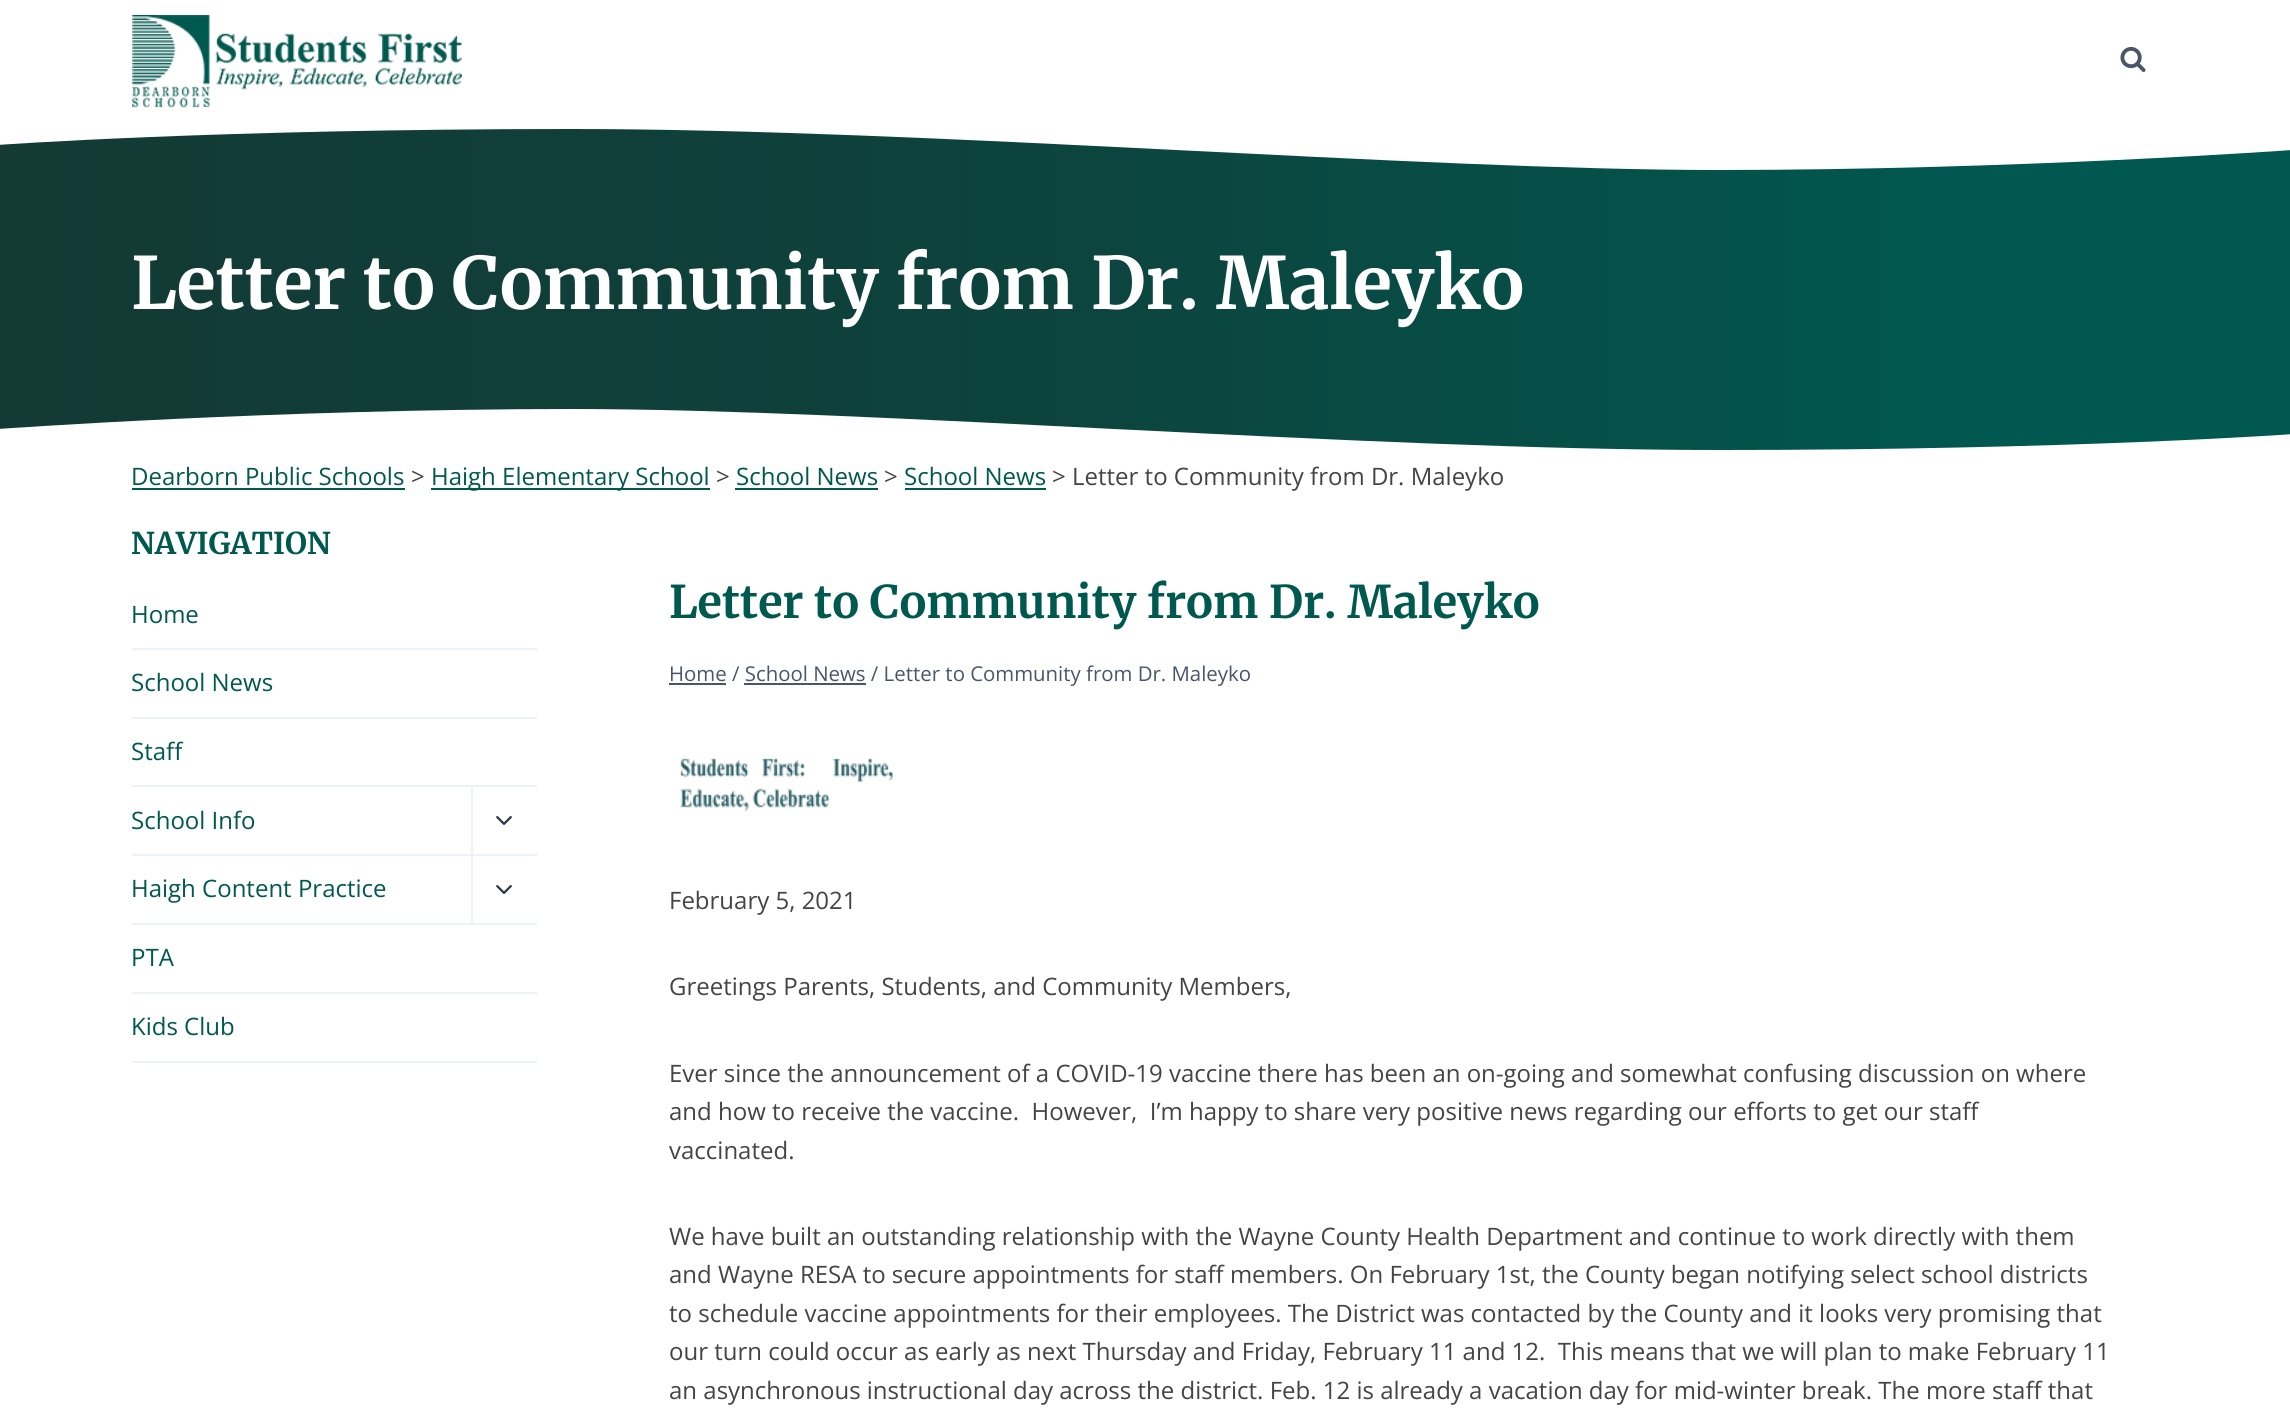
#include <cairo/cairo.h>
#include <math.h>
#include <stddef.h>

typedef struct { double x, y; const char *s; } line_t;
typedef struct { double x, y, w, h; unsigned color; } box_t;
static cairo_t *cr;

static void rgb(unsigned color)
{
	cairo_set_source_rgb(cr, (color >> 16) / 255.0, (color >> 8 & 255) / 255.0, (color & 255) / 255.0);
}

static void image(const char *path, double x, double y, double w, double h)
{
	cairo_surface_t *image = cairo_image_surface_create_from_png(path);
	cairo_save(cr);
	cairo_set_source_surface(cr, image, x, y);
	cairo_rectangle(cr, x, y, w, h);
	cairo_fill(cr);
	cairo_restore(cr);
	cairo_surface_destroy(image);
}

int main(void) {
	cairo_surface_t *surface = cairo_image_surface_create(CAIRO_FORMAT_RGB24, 2290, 1408);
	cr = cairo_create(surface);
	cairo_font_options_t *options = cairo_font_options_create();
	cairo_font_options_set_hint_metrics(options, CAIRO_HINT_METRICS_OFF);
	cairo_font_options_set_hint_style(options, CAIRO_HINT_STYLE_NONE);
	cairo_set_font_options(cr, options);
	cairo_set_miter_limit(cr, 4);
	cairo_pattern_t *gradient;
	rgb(0xffffff);
	cairo_paint(cr);
	image("img/1.png", 132, 15, 330, 93);
	image("img/2.png", 2120, 46, 26, 26);
	gradient = cairo_pattern_create_linear(0, 290, 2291, 290);
	cairo_pattern_add_color_stop_rgba(gradient, 0, 0.075, 0.227, 0.208, 1);
	cairo_pattern_add_color_stop_rgba(gradient, 0.18, 0.067, 0.239, 0.22, 1);
	cairo_pattern_add_color_stop_rgba(gradient, 0.45, 0.051, 0.263, 0.239, 1);
	cairo_pattern_add_color_stop_rgba(gradient, 0.87, 0, 0.345, 0.314, 1);
	cairo_set_source(cr, gradient);
	cairo_pattern_destroy(gradient);
	cairo_rectangle(cr, 0, 129, 2290, 321);
	cairo_fill(cr);
	rgb(0xffffff);
	cairo_new_path(cr);
	cairo_move_to(cr, 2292, 150);
	cairo_curve_to(cr, 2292, 150, 2016, 170, 1718, 170);
	cairo_curve_to(cr, 1420, 170, 926, 129, 571, 129);
	cairo_curve_to(cr, 215, 129, -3, 145, -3, 145);
	cairo_line_to(cr, -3, 118);
	cairo_line_to(cr, 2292, 118);
	cairo_close_path(cr);
	cairo_fill(cr);
	cairo_new_path(cr);
	cairo_move_to(cr, -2, 429);
	cairo_curve_to(cr, -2, 429, 274, 409, 572, 409);
	cairo_curve_to(cr, 870, 409, 1364, 450, 1720, 450);
	cairo_curve_to(cr, 2075, 450, 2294, 434, 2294, 434);
	cairo_line_to(cr, 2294, 460);
	cairo_line_to(cr, -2, 460);
	cairo_close_path(cr);
	cairo_fill(cr);
	{
		static const box_t items[] = {
			{132, 488, 273, 2, 0x00594f},
			{431, 488, 279, 2, 0x00594f},
			{735, 488, 143, 2, 0x00594f},
			{905, 488, 141, 2, 0x00594f},
			{132, 648, 405, 2, 0xedf2f7},
			{132, 717, 405, 2, 0xedf2f7},
			{132, 785, 405, 2, 0xedf2f7},
			{132, 854, 405, 2, 0xedf2f7},
			{471, 786, 2, 69, 0xedf2f7},
		};
		for (size_t i = 0; i < sizeof items / sizeof *items; i++) {
			rgb(items[i].color);
			cairo_rectangle(cr, items[i].x, items[i].y, items[i].w, items[i].h);
			cairo_fill(cr);
		}
	}
	image("img/3.png", 496, 816, 16, 9);
	cairo_rectangle(cr, 132, 923, 405, 2);
	cairo_fill(cr);
	cairo_rectangle(cr, 471, 855, 2, 69);
	cairo_fill(cr);
	image("img/3.png", 496, 885, 16, 9);
	{
		static const box_t items[] = {
			{132, 992, 405, 2, 0xedf2f7},
			{132, 1061, 405, 2, 0xedf2f7},
			{669, 683, 57, 2, 0x4a5568},
			{744, 683, 122, 2, 0x4a5568},
		};
		for (size_t i = 0; i < sizeof items / sizeof *items; i++) {
			rgb(items[i].color);
			cairo_rectangle(cr, items[i].x, items[i].y, items[i].w, items[i].h);
			cairo_fill(cr);
		}
	}
	image("img/4.png", 679, 758, 214, 54);
	cairo_select_font_face(cr, "Merriweather Light", CAIRO_FONT_SLANT_NORMAL, CAIRO_FONT_WEIGHT_NORMAL);
	cairo_set_font_size(cr, 72);
	rgb(0xffffff);
	cairo_move_to(cr, 131, 309);
	cairo_show_text(cr, "Letter to Community from Dr. Maleyko");
	cairo_select_font_face(cr, "Open Sans", CAIRO_FONT_SLANT_NORMAL, CAIRO_FONT_WEIGHT_NORMAL);
	cairo_set_font_size(cr, 24);
	rgb(0x00594f);
	cairo_move_to(cr, 131, 485);
	cairo_show_text(cr, "Dearborn Public Schools");
	rgb(0x444444);
	cairo_move_to(cr, 411, 485);
	cairo_show_text(cr, ">");
	rgb(0x00594f);
	cairo_move_to(cr, 431, 485);
	cairo_show_text(cr, "Haigh Elementary School");
	rgb(0x444444);
	cairo_move_to(cr, 716, 485);
	cairo_show_text(cr, ">");
	rgb(0x00594f);
	cairo_move_to(cr, 736, 485);
	cairo_show_text(cr, "School News");
	rgb(0x444444);
	cairo_move_to(cr, 884, 485);
	cairo_show_text(cr, ">");
	rgb(0x00594f);
	cairo_move_to(cr, 904, 485);
	cairo_show_text(cr, "School News");
	rgb(0x444444);
	cairo_move_to(cr, 1052, 485);
	cairo_show_text(cr, "> Letter to Community from Dr. Maleyko");
	cairo_select_font_face(cr, "Merriweather Light", CAIRO_FONT_SLANT_NORMAL, CAIRO_FONT_WEIGHT_NORMAL);
	cairo_set_font_size(cr, 30);
	rgb(0x00594f);
	cairo_move_to(cr, 131, 554);
	cairo_show_text(cr, "NAVIGATION");
	cairo_select_font_face(cr, "Open Sans", CAIRO_FONT_SLANT_NORMAL, CAIRO_FONT_WEIGHT_NORMAL);
	cairo_set_font_size(cr, 24);
	{
		static const line_t items[] = {
			{131, 623, "Home"},
			{131, 691, "School News"},
			{131, 760, "Staff"},
			{131, 829, "School Info"},
			{131, 897, "Haigh Content Practice"},
			{131, 966, "PTA"},
			{131, 1035, "Kids Club"},
		};
		for (size_t i = 0; i < sizeof items / sizeof *items; i++) {
			cairo_move_to(cr, items[i].x, items[i].y);
			cairo_show_text(cr, items[i].s);
		}
	}
	cairo_select_font_face(cr, "Merriweather Light", CAIRO_FONT_SLANT_NORMAL, CAIRO_FONT_WEIGHT_NORMAL);
	cairo_set_font_size(cr, 45);
	cairo_move_to(cr, 669, 618);
	cairo_show_text(cr, "Letter to Community from Dr. Maleyko");
	cairo_select_font_face(cr, "Open Sans", CAIRO_FONT_SLANT_NORMAL, CAIRO_FONT_WEIGHT_NORMAL);
	cairo_set_font_size(cr, 20.4);
	rgb(0x4a5568);
	cairo_move_to(cr, 669, 681);
	cairo_show_text(cr, "Home / School News / Letter to Community from Dr. Maleyko");
	cairo_set_font_size(cr, 24);
	rgb(0x444444);
	{
		static const line_t items[] = {
			{669, 909, "February 5, 2021"},
			{669, 995, "Greetings Parents, Students, and Community Members,"},
			{669, 1082, "Ever since the announcement of a COVID-19 vaccine there has been an on-going and somewhat confusing discussion on where"},
			{669, 1120, "and how to receive the vaccine.  However,  I’m happy to share very positive news regarding our efforts to get our staff"},
			{669, 1159, "vaccinated."},
			{669, 1245, "We have built an outstanding relationship with the Wayne County Health Department and continue to work directly with them"},
			{669, 1283, "and Wayne RESA to secure appointments for staff members. On February 1st, the County began notifying select school districts"},
			{669, 1322, "to schedule vaccine appointments for their employees. The District was contacted by the County and it looks very promising that"},
			{669, 1360, "our turn could occur as early as next Thursday and Friday, February 11 and 12.  This means that we will plan to make February 11"},
			{669, 1399, "an asynchronous instructional day across the district. Feb. 12 is already a vacation day for mid-winter break. The more staff that"},
		};
		for (size_t i = 0; i < sizeof items / sizeof *items; i++) {
			cairo_move_to(cr, items[i].x, items[i].y);
			cairo_show_text(cr, items[i].s);
		}
	}
	cairo_surface_write_to_png(surface, "page.png");
	cairo_font_options_destroy(options);
	cairo_destroy(cr);
	cairo_surface_destroy(surface);
	return 0;
}
